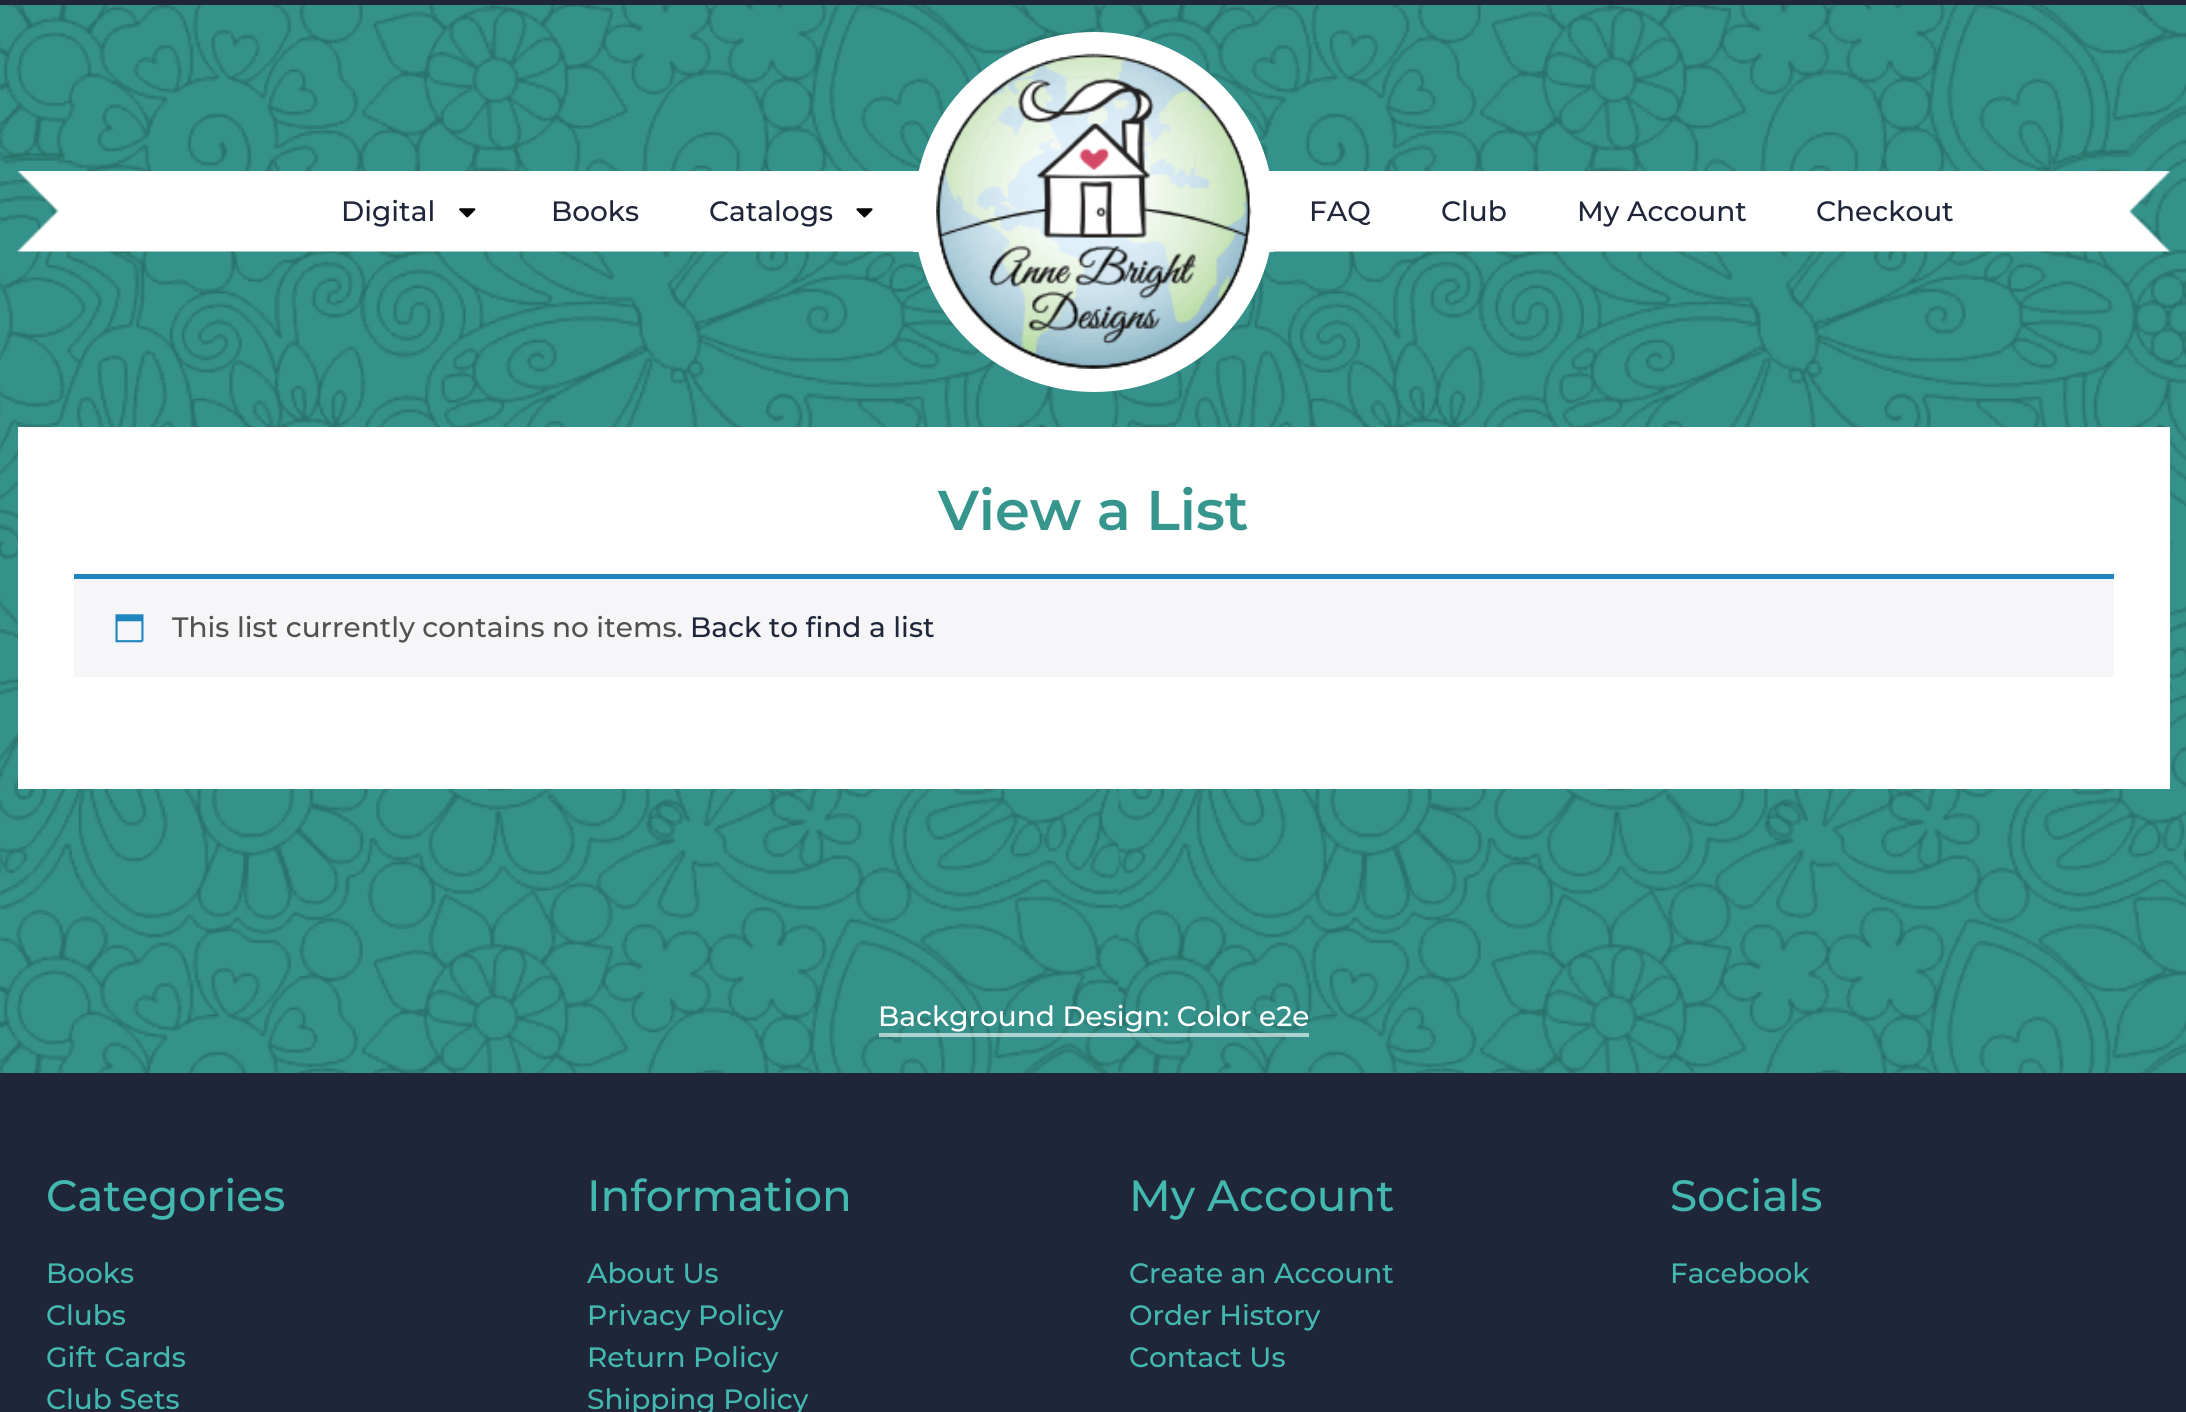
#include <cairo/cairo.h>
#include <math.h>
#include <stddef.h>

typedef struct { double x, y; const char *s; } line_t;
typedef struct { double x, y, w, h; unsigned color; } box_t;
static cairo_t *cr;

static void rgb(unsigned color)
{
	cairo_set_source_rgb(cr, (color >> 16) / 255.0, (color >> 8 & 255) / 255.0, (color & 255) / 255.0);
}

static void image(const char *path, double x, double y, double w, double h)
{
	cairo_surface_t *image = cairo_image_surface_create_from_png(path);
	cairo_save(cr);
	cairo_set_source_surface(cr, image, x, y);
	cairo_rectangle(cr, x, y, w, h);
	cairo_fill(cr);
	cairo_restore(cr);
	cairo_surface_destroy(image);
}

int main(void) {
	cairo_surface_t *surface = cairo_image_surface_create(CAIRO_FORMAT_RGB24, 2186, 1412);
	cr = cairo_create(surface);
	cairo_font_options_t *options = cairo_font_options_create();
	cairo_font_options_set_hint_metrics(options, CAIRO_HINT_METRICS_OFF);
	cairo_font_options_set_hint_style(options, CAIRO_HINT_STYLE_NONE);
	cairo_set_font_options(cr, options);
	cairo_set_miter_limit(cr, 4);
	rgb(0xffffff);
	cairo_paint(cr);
	image("img/1.png", 0, 5, 2186, 1068);
	rgb(0x1f263a);
	cairo_rectangle(cr, 0, 0, 2186, 5);
	cairo_fill(cr);
	image("img/2.png", 17, 171, 896, 81);
	image("img/3.png", 459, 208, 17, 10);
	image("img/4.png", 856, 208, 17, 10);
	rgb(0xffffff);
	cairo_arc(cr, 1094, 212, 180, 0, 2 * M_PI);
	cairo_fill(cr);
	cairo_rectangle(cr, 913, 171, 361, 81);
	cairo_fill(cr);
	image("img/5.png", 936, 53, 316, 316);
	image("img/6.png", 1274, 171, 896, 81);
	{
		static const box_t items[] = {
			{18, 427, 2152, 362, 0xffffff},
			{74, 579, 2040, 98, 0xf6f5f8},
			{74, 574, 2040, 5, 0x1e85be},
		};
		for (size_t i = 0; i < sizeof items / sizeof *items; i++) {
			rgb(items[i].color);
			cairo_rectangle(cr, items[i].x, items[i].y, items[i].w, items[i].h);
			cairo_fill(cr);
		}
	}
	image("img/7.png", 115, 614, 29, 29);
	cairo_set_source_rgba(cr, 1, 1, 1, 0.6);
	cairo_rectangle(cr, 879, 1033, 430, 4);
	cairo_fill(cr);
	rgb(0x1f263a);
	cairo_rectangle(cr, 0, 1073, 2186, 339);
	cairo_fill(cr);
	cairo_select_font_face(cr, "Montserrat Medium", CAIRO_FONT_SLANT_NORMAL, CAIRO_FONT_WEIGHT_NORMAL);
	cairo_set_font_size(cr, 28);
	{
		static const line_t items[] = {
			{341, 221, "Digital"},
			{551, 221, "Books"},
			{709, 221, "Catalogs"},
			{1309, 221, "FAQ"},
			{1441, 221, "Club"},
			{1577, 221, "My Account"},
			{1816, 221, "Checkout"},
		};
		for (size_t i = 0; i < sizeof items / sizeof *items; i++) {
			cairo_move_to(cr, items[i].x, items[i].y);
			cairo_show_text(cr, items[i].s);
		}
	}
	cairo_select_font_face(cr, "Montserrat SemiBold", CAIRO_FONT_SLANT_NORMAL, CAIRO_FONT_WEIGHT_NORMAL);
	cairo_set_font_size(cr, 56);
	rgb(0x36968e);
	cairo_move_to(cr, 938, 530);
	cairo_show_text(cr, "View a List");
	cairo_select_font_face(cr, "Montserrat Medium", CAIRO_FONT_SLANT_NORMAL, CAIRO_FONT_WEIGHT_NORMAL);
	cairo_set_font_size(cr, 28);
	rgb(0x515151);
	cairo_move_to(cr, 172, 637);
	cairo_show_text(cr, "This list currently contains no items.");
	rgb(0x1f263a);
	cairo_move_to(cr, 690, 637);
	cairo_show_text(cr, "Back to find a list");
	rgb(0xffffff);
	cairo_move_to(cr, 878, 1026);
	cairo_show_text(cr, "Background Design: Color e2e");
	cairo_set_font_size(cr, 43.75);
	rgb(0x42b8ae);
	cairo_move_to(cr, 46, 1211);
	cairo_show_text(cr, "Categories");
	cairo_set_font_size(cr, 28);
	{
		static const line_t items[] = {
			{46, 1283, "Books"},
			{46, 1325, "Clubs"},
			{46, 1367, "Gift Cards"},
			{46, 1409, "Club Sets"},
		};
		for (size_t i = 0; i < sizeof items / sizeof *items; i++) {
			cairo_move_to(cr, items[i].x, items[i].y);
			cairo_show_text(cr, items[i].s);
		}
	}
	cairo_set_font_size(cr, 43.75);
	cairo_move_to(cr, 587, 1211);
	cairo_show_text(cr, "Information");
	cairo_set_font_size(cr, 28);
	{
		static const line_t items[] = {
			{587, 1283, "About Us"},
			{587, 1325, "Privacy Policy"},
			{587, 1367, "Return Policy"},
			{587, 1409, "Shipping Policy"},
		};
		for (size_t i = 0; i < sizeof items / sizeof *items; i++) {
			cairo_move_to(cr, items[i].x, items[i].y);
			cairo_show_text(cr, items[i].s);
		}
	}
	cairo_set_font_size(cr, 43.75);
	cairo_move_to(cr, 1129, 1211);
	cairo_show_text(cr, "My Account");
	cairo_set_font_size(cr, 28);
	{
		static const line_t items[] = {
			{1129, 1283, "Create an Account"},
			{1129, 1325, "Order History"},
			{1129, 1367, "Contact Us"},
		};
		for (size_t i = 0; i < sizeof items / sizeof *items; i++) {
			cairo_move_to(cr, items[i].x, items[i].y);
			cairo_show_text(cr, items[i].s);
		}
	}
	cairo_set_font_size(cr, 43.75);
	cairo_move_to(cr, 1670, 1211);
	cairo_show_text(cr, "Socials");
	cairo_set_font_size(cr, 28);
	cairo_move_to(cr, 1670, 1283);
	cairo_show_text(cr, "Facebook");
	cairo_surface_write_to_png(surface, "page.png");
	cairo_font_options_destroy(options);
	cairo_destroy(cr);
	cairo_surface_destroy(surface);
	return 0;
}
